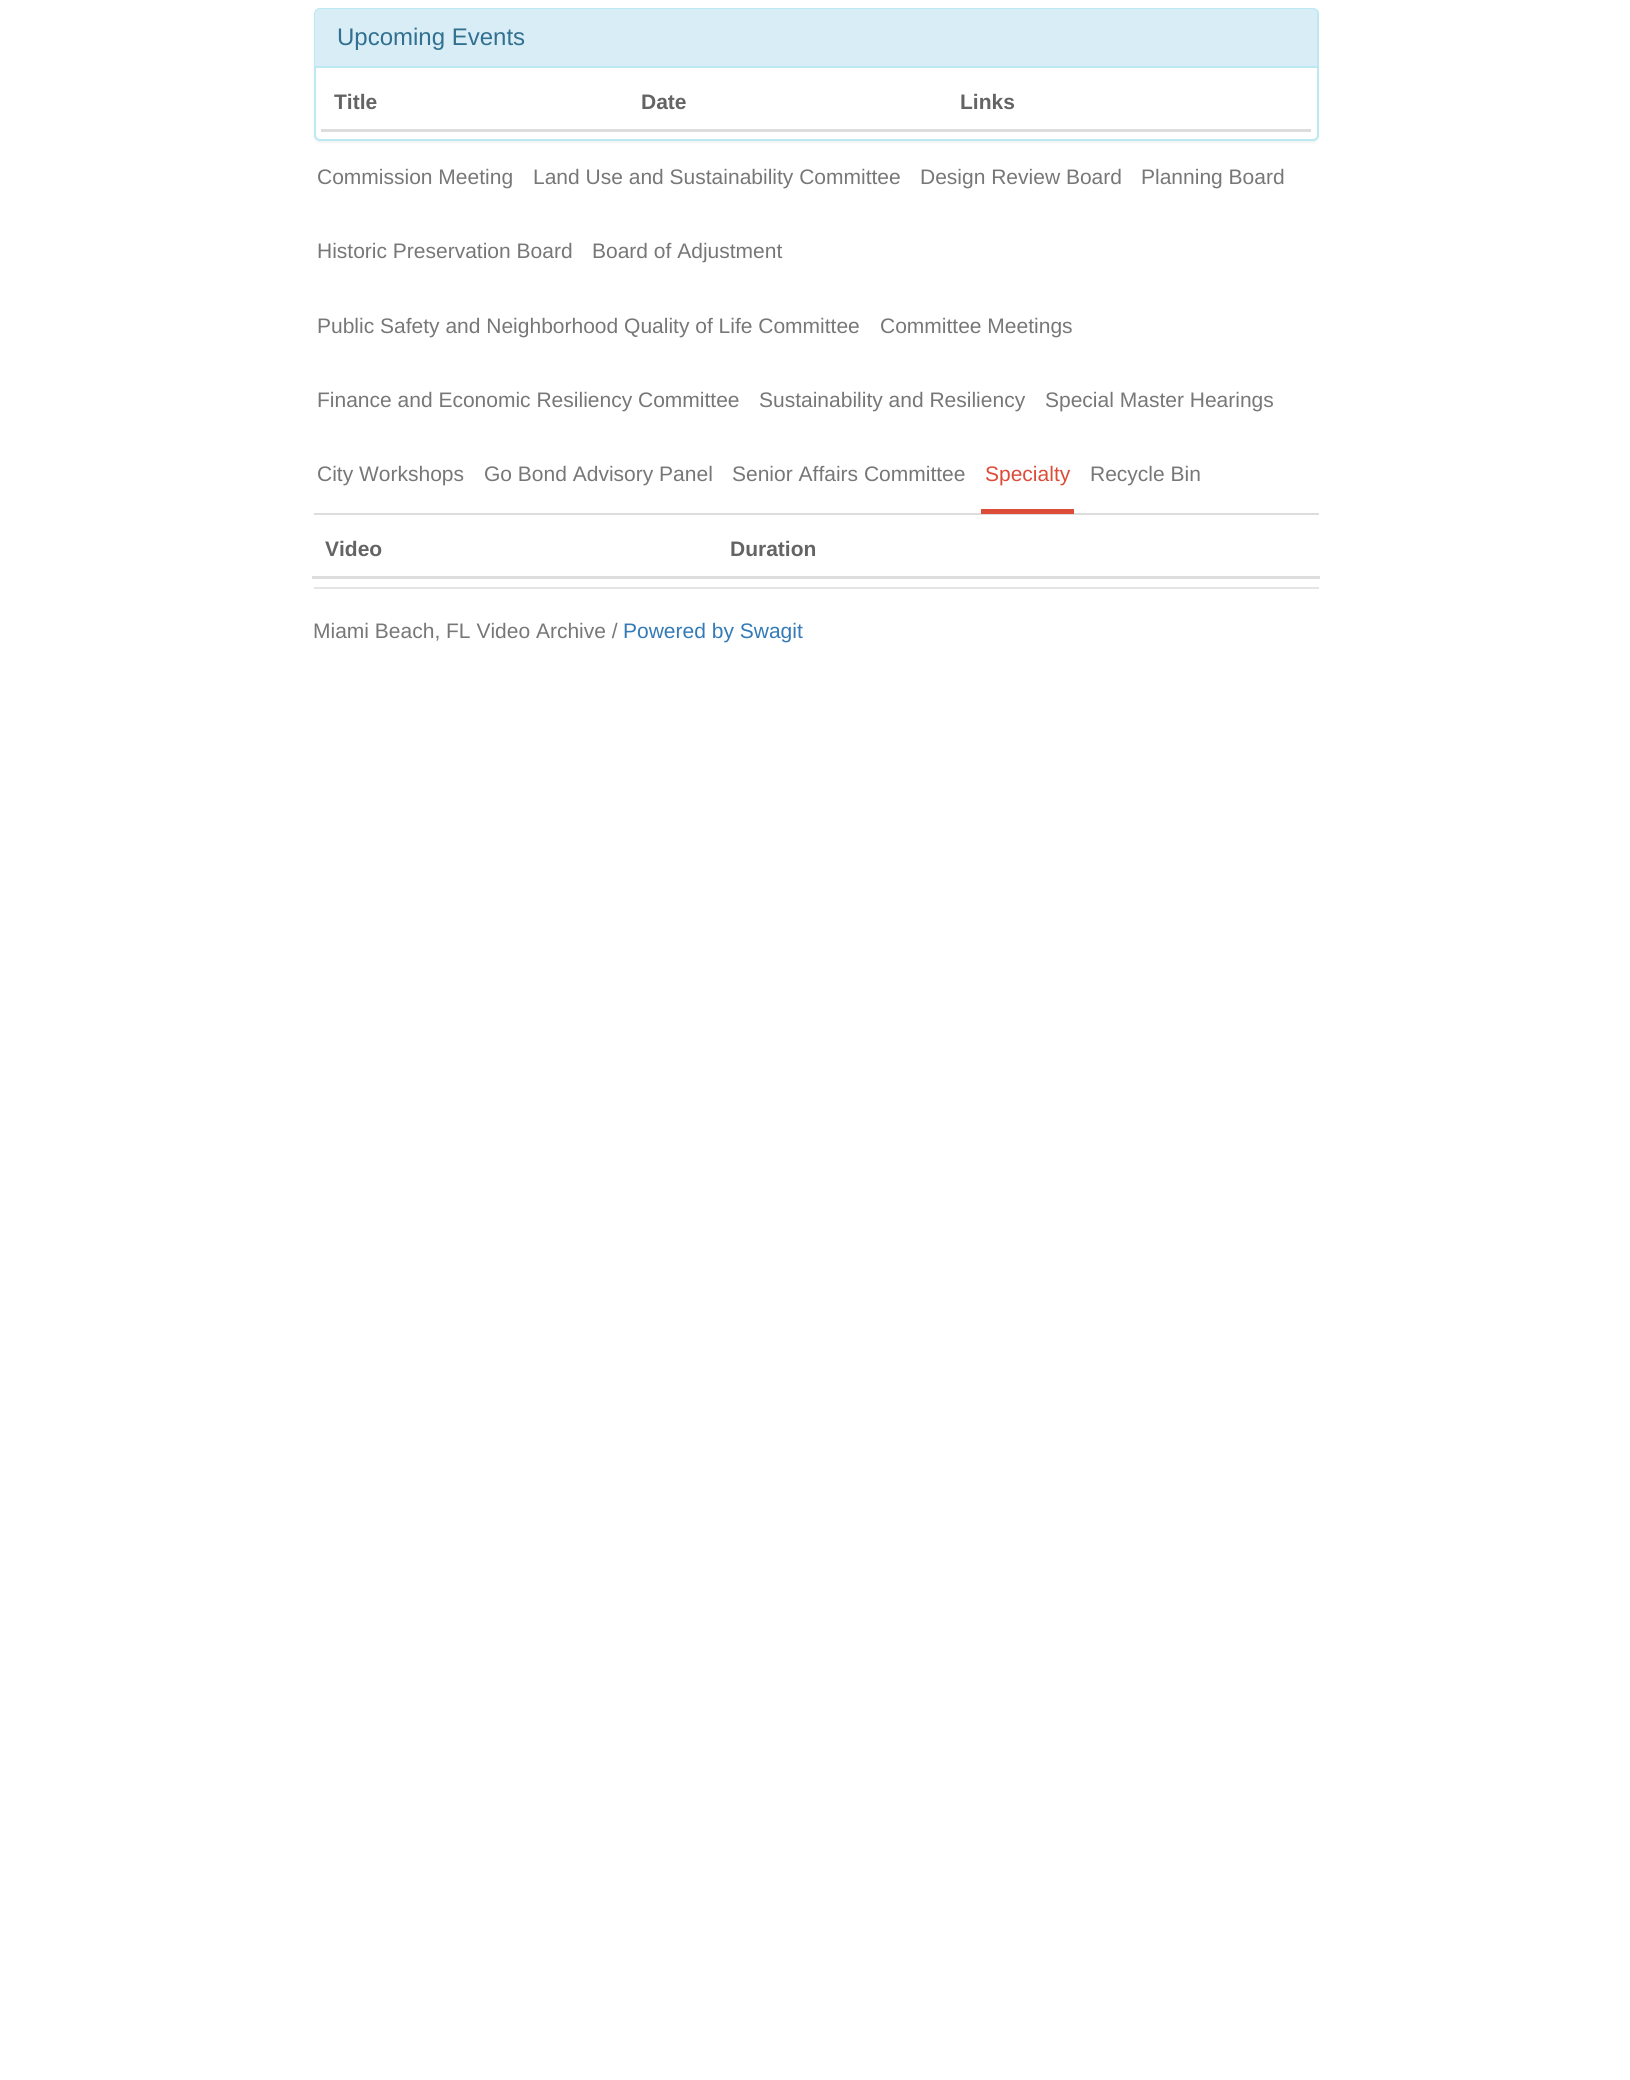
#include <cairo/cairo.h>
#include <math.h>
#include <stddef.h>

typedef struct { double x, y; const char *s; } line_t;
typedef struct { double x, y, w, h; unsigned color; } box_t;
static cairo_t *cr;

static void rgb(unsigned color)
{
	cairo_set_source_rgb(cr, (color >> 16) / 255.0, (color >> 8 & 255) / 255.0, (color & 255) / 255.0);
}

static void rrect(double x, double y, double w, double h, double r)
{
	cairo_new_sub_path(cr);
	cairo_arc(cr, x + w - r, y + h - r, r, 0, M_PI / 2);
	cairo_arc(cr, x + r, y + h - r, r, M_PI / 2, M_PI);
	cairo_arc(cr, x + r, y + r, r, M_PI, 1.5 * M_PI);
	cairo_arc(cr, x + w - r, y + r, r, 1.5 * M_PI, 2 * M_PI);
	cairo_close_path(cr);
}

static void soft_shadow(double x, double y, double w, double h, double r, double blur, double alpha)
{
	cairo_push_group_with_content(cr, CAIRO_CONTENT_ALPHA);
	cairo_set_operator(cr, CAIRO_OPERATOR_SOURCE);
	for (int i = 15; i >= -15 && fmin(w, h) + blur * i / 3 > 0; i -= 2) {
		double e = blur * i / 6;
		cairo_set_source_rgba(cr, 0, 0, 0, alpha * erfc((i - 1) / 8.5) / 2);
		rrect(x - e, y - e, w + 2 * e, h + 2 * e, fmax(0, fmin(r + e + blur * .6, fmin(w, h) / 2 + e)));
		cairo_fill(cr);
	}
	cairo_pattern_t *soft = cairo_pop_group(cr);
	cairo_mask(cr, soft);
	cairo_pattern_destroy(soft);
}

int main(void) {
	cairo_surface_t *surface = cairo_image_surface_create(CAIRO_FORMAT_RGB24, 1630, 2080);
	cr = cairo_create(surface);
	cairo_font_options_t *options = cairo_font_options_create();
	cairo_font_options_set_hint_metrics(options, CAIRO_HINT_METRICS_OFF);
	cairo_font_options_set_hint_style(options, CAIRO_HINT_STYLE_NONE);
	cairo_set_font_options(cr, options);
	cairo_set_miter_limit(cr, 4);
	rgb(0xffffff);
	cairo_paint(cr);
	rgb(0x000000);
	soft_shadow(314, 9, 1005, 134, 6, 1, 0.05);
	rgb(0xffffff);
	rrect(315, 9, 1003, 131, 5);
	cairo_fill_preserve(cr);
	rgb(0xbce8f1);
	cairo_stroke(cr);
	rgb(0xd9edf7);
	cairo_new_path(cr);
	cairo_move_to(cr, 320, 9);
	cairo_line_to(cr, 1312, 9);
	cairo_curve_to(cr, 1315, 9, 1317, 11, 1317, 14);
	cairo_line_to(cr, 1317, 68);
	cairo_line_to(cr, 315, 68);
	cairo_line_to(cr, 315, 14);
	cairo_curve_to(cr, 315, 11, 317, 9, 320, 9);
	cairo_close_path(cr);
	cairo_fill(cr);
	{
		static const box_t items[] = {
			{315, 66, 1002, 2, 0xbce8f1},
			{321, 129, 990, 3, 0xdddddd},
			{314, 513, 1005, 2, 0xdddddd},
			{981, 509, 93, 5, 0xdd4b39},
			{312, 576, 1008, 3, 0xdddddd},
			{314, 587, 1005, 2, 0xe5e5e5},
		};
		for (size_t i = 0; i < sizeof items / sizeof *items; i++) {
			rgb(items[i].color);
			cairo_rectangle(cr, items[i].x, items[i].y, items[i].w, items[i].h);
			cairo_fill(cr);
		}
	}
	cairo_select_font_face(cr, "Liberation Sans", CAIRO_FONT_SLANT_NORMAL, CAIRO_FONT_WEIGHT_NORMAL);
	cairo_set_font_size(cr, 24);
	rgb(0x31708f);
	cairo_move_to(cr, 337, 45);
	cairo_show_text(cr, "Upcoming Events");
	cairo_select_font_face(cr, "Liberation Sans", CAIRO_FONT_SLANT_NORMAL, CAIRO_FONT_WEIGHT_BOLD);
	cairo_set_font_size(cr, 21);
	rgb(0x646464);
	{
		static const line_t items[] = {
			{334, 109, "Title"},
			{641, 109, "Date"},
			{960, 109, "Links"},
		};
		for (size_t i = 0; i < sizeof items / sizeof *items; i++) {
			cairo_move_to(cr, items[i].x, items[i].y);
			cairo_show_text(cr, items[i].s);
		}
	}
	cairo_select_font_face(cr, "Liberation Sans", CAIRO_FONT_SLANT_NORMAL, CAIRO_FONT_WEIGHT_NORMAL);
	rgb(0x777777);
	{
		static const line_t items[] = {
			{317, 184, "Commission Meeting"},
			{533, 184, "Land Use and Sustainability Committee"},
			{920, 184, "Design Review Board"},
			{1141, 184, "Planning Board"},
			{317, 258, "Historic Preservation Board"},
			{592, 258, "Board of Adjustment"},
			{317, 333, "Public Safety and Neighborhood Quality of Life Committee"},
			{880, 333, "Committee Meetings"},
			{317, 407, "Finance and Economic Resiliency Committee"},
			{759, 407, "Sustainability and Resiliency"},
			{1045, 407, "Special Master Hearings"},
			{317, 481, "City Workshops"},
			{484, 481, "Go Bond Advisory Panel"},
			{732, 481, "Senior Affairs Committee"},
		};
		for (size_t i = 0; i < sizeof items / sizeof *items; i++) {
			cairo_move_to(cr, items[i].x, items[i].y);
			cairo_show_text(cr, items[i].s);
		}
	}
	rgb(0xdd4b39);
	cairo_move_to(cr, 985, 481);
	cairo_show_text(cr, "Specialty");
	rgb(0x777777);
	cairo_move_to(cr, 1090, 481);
	cairo_show_text(cr, "Recycle Bin");
	cairo_select_font_face(cr, "Liberation Sans", CAIRO_FONT_SLANT_NORMAL, CAIRO_FONT_WEIGHT_BOLD);
	rgb(0x646464);
	cairo_move_to(cr, 325, 556);
	cairo_show_text(cr, "Video");
	cairo_move_to(cr, 730, 556);
	cairo_show_text(cr, "Duration");
	cairo_select_font_face(cr, "Liberation Sans", CAIRO_FONT_SLANT_NORMAL, CAIRO_FONT_WEIGHT_NORMAL);
	rgb(0x777777);
	cairo_move_to(cr, 313, 638);
	cairo_show_text(cr, "Miami Beach, FL Video Archive /");
	rgb(0x337ab7);
	cairo_move_to(cr, 623, 638);
	cairo_show_text(cr, "Powered by Swagit");
	cairo_surface_write_to_png(surface, "page.png");
	cairo_font_options_destroy(options);
	cairo_destroy(cr);
	cairo_surface_destroy(surface);
	return 0;
}
